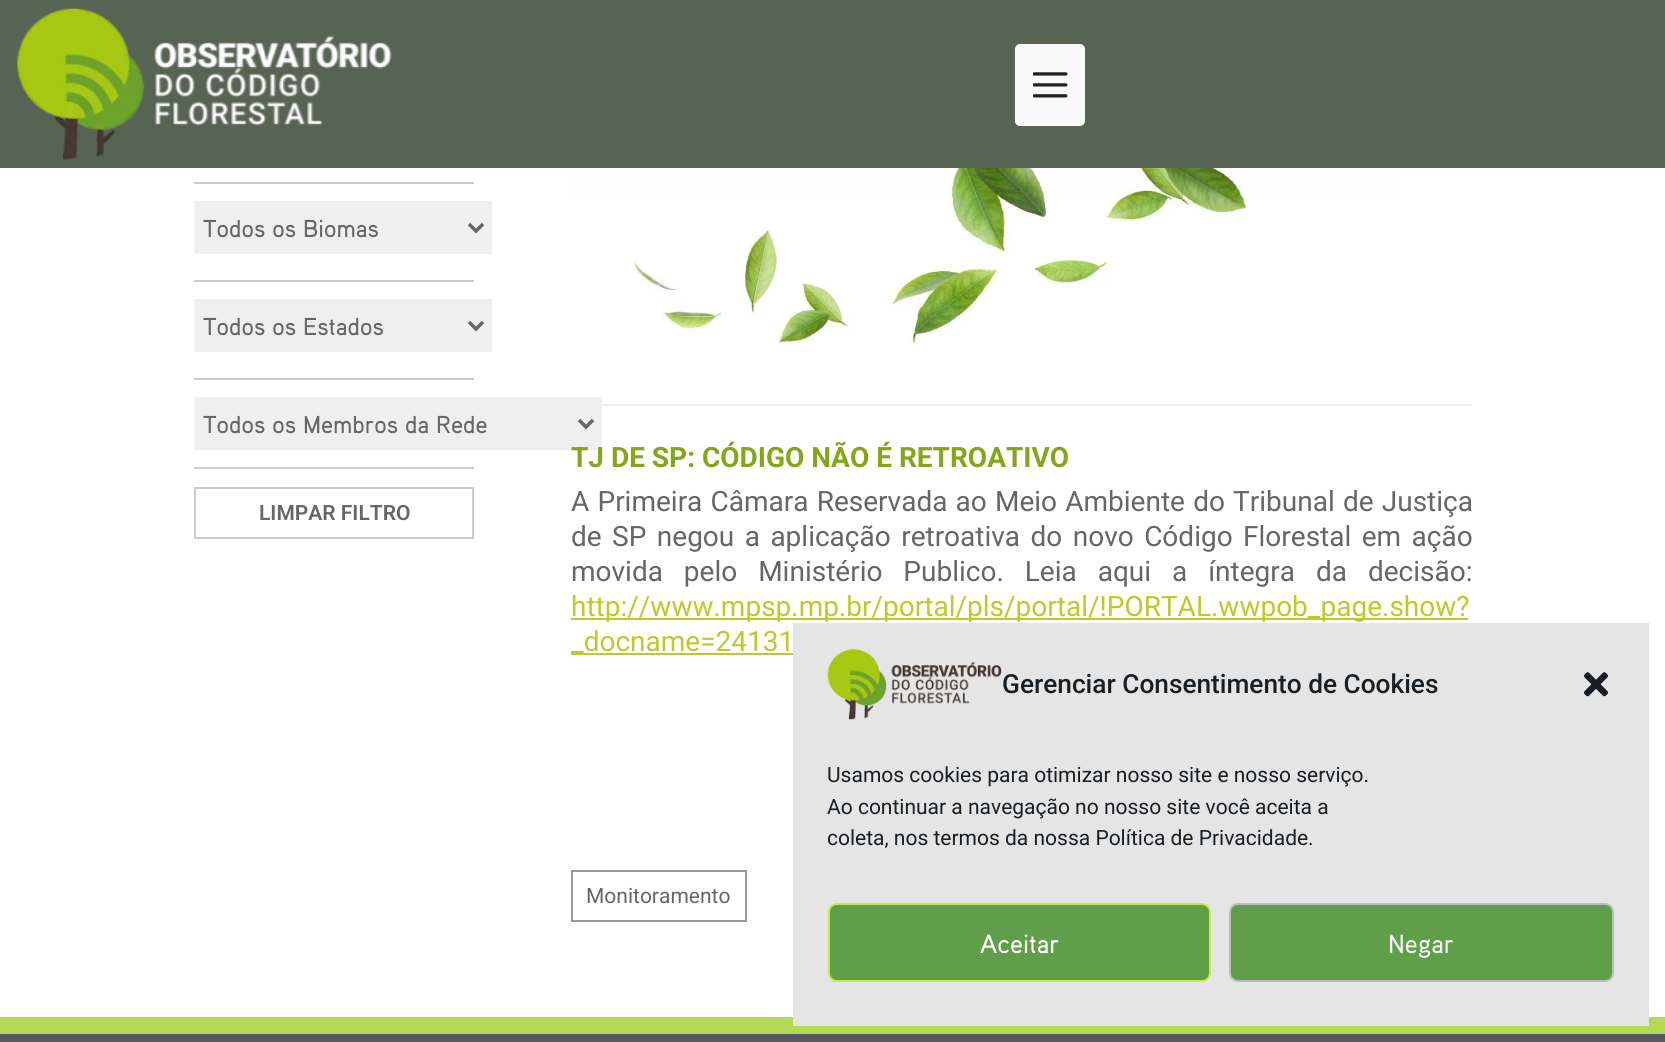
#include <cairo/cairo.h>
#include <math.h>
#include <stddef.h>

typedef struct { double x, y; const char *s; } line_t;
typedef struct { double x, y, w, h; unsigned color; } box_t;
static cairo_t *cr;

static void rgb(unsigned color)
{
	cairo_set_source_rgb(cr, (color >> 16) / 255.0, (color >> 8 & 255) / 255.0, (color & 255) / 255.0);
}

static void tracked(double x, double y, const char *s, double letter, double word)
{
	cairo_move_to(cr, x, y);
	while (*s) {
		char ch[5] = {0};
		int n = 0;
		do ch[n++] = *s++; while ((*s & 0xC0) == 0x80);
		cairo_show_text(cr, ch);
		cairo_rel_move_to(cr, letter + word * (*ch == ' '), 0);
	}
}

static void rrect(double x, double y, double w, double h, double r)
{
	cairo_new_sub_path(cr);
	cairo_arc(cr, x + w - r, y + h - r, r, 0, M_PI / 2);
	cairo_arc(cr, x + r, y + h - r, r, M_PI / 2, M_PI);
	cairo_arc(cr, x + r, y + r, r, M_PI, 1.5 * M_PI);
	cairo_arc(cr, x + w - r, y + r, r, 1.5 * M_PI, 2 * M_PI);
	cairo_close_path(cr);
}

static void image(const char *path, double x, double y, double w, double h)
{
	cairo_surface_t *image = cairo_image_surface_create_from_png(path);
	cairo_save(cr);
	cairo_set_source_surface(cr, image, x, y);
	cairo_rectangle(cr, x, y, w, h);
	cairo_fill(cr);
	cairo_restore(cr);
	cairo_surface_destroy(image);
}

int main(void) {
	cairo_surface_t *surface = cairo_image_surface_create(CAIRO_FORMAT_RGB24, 1665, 1042);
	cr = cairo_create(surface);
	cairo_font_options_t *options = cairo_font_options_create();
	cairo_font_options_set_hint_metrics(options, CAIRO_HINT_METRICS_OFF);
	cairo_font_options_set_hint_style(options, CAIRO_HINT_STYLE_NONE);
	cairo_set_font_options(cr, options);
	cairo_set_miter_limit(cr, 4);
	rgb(0xffffff);
	cairo_paint(cr);
	rgb(0x576454);
	cairo_rectangle(cr, 0, 0, 1665, 168);
	cairo_fill(cr);
	image("img/1.png", 17, 8, 375, 152);
	rgb(0xf9f9f9);
	rrect(1015, 44, 70, 82, 5);
	cairo_fill(cr);
	image("img/2.png", 1033, 72, 35, 26);
	rgb(0xcccccc);
	cairo_rectangle(cr, 194, 182, 280, 2);
	cairo_fill(cr);
	rgb(0xefefef);
	cairo_rectangle(cr, 194, 201, 298, 53);
	cairo_fill(cr);
	cairo_new_path(cr);
	cairo_move_to(cr, 469, 224);
	cairo_line_to(cr, 476, 231);
	cairo_line_to(cr, 483, 224);
	rgb(0x666666);
	cairo_set_line_width(cr, 3.5);
	cairo_stroke(cr);
	rgb(0xcccccc);
	cairo_rectangle(cr, 194, 280, 280, 2);
	cairo_fill(cr);
	rgb(0xefefef);
	cairo_rectangle(cr, 194, 299, 298, 53);
	cairo_fill(cr);
	cairo_new_path(cr);
	cairo_move_to(cr, 469, 322);
	cairo_line_to(cr, 476, 329);
	cairo_line_to(cr, 483, 322);
	rgb(0x666666);
	cairo_stroke(cr);
	rgb(0xcccccc);
	cairo_rectangle(cr, 194, 378, 280, 2);
	cairo_fill(cr);
	rgb(0xefefef);
	cairo_rectangle(cr, 194, 397, 408, 53);
	cairo_fill(cr);
	cairo_new_path(cr);
	cairo_move_to(cr, 579, 420);
	cairo_line_to(cr, 586, 427);
	cairo_line_to(cr, 593, 420);
	rgb(0x666666);
	cairo_stroke(cr);
	rgb(0xcccccc);
	cairo_rectangle(cr, 194, 467, 280, 2);
	cairo_fill(cr);
	cairo_rectangle(cr, 195, 488, 278, 50);
	cairo_set_line_width(cr, 2);
	cairo_stroke(cr);
	image("img/3.png", 570, 168, 829, 177);
	{
		static const box_t items[] = {
			{602, 404, 870, 2, 0xeeeeee},
			{571, 618, 897, 2, 0xbeca29},
			{571, 653, 222, 2, 0xbeca29},
		};
		for (size_t i = 0; i < sizeof items / sizeof *items; i++) {
			rgb(items[i].color);
			cairo_rectangle(cr, items[i].x, items[i].y, items[i].w, items[i].h);
			cairo_fill(cr);
		}
	}
	cairo_rectangle(cr, 572, 871, 174, 50);
	rgb(0x999999);
	cairo_stroke(cr);
	rgb(0xb5da55);
	cairo_rectangle(cr, 0, 1017, 1665, 17);
	cairo_fill(cr);
	rgb(0xe5e5e5);
	cairo_rectangle(cr, 793, 623, 856, 403);
	cairo_fill(cr);
	image("img/4.png", 827, 649, 175, 71);
	image("img/5.png", 1584, 672, 24, 25);
	rgb(0x609f49);
	rrect(829, 904, 381, 77, 8);
	cairo_fill_preserve(cr);
	rgb(0xc2ea48);
	cairo_stroke(cr);
	rgb(0x609f49);
	rrect(1230, 904, 383, 77, 8);
	cairo_fill_preserve(cr);
	rgb(0xbcbcbc);
	cairo_stroke(cr);
	rgb(0x575860);
	cairo_rectangle(cr, 0, 1034, 1665, 8);
	cairo_fill(cr);
	cairo_select_font_face(cr, "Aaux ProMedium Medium", CAIRO_FONT_SLANT_NORMAL, CAIRO_FONT_WEIGHT_NORMAL);
	cairo_set_font_size(cr, 24.5);
	rgb(0x666666);
	{
		static const line_t items[] = {
			{203, 237, "Todos os Biomas"},
			{203, 335, "Todos os Estados"},
			{203, 433, "Todos os Membros da Rede"},
		};
		for (size_t i = 0; i < sizeof items / sizeof *items; i++) {
			cairo_move_to(cr, items[i].x, items[i].y);
			cairo_show_text(cr, items[i].s);
		}
	}
	cairo_select_font_face(cr, "Roboto SemiBold", CAIRO_FONT_SLANT_NORMAL, CAIRO_FONT_WEIGHT_NORMAL);
	cairo_set_font_size(cr, 21);
	cairo_move_to(cr, 259, 520);
	cairo_show_text(cr, "LIMPAR FILTRO");
	cairo_select_font_face(cr, "Roboto", CAIRO_FONT_SLANT_NORMAL, CAIRO_FONT_WEIGHT_BOLD);
	cairo_set_font_size(cr, 28);
	rgb(0x84a719);
	cairo_move_to(cr, 571, 467);
	cairo_show_text(cr, "TJ DE SP: CÓDIGO NÃO É RETROATIVO");
	cairo_select_font_face(cr, "Roboto", CAIRO_FONT_SLANT_NORMAL, CAIRO_FONT_WEIGHT_NORMAL);
	rgb(0x666666);
	tracked(571, 511, "A Primeira Câmara Reservada ao Meio Ambiente do Tribunal de Justiça", 0, 1.25);
	tracked(571, 546, "de SP negou a aplicação retroativa do novo Código Florestal em ação", 0, 3.5);
	tracked(571, 581, "movida pelo Ministério Publico. Leia aqui a íntegra da decisão:", 0, 14);
	rgb(0xbeca29);
	cairo_move_to(cr, 571, 616);
	cairo_show_text(cr, "http://www.mpsp.mp.br/portal/pls/portal/!PORTAL.wwpob_page.show?");
	cairo_move_to(cr, 571, 651);
	cairo_show_text(cr, "_docname=24131");
	cairo_set_font_size(cr, 21);
	rgb(0x666666);
	cairo_move_to(cr, 586, 903);
	cairo_show_text(cr, "Monitoramento");
	cairo_select_font_face(cr, "Roboto Medium", CAIRO_FONT_SLANT_NORMAL, CAIRO_FONT_WEIGHT_NORMAL);
	cairo_set_font_size(cr, 26.25);
	rgb(0x191e23);
	cairo_move_to(cr, 1002, 693);
	cairo_show_text(cr, "Gerenciar Consentimento de Cookies");
	cairo_select_font_face(cr, "Roboto", CAIRO_FONT_SLANT_NORMAL, CAIRO_FONT_WEIGHT_NORMAL);
	cairo_set_font_size(cr, 21);
	{
		static const line_t items[] = {
			{827, 782, "Usamos cookies para otimizar nosso site e nosso serviço."},
			{827, 814, "Ao continuar a navegação no nosso site você aceita a"},
			{827, 845, "coleta, nos termos da nossa Política de Privacidade."},
		};
		for (size_t i = 0; i < sizeof items / sizeof *items; i++) {
			cairo_move_to(cr, items[i].x, items[i].y);
			cairo_show_text(cr, items[i].s);
		}
	}
	cairo_select_font_face(cr, "Aaux ProMedium Medium", CAIRO_FONT_SLANT_NORMAL, CAIRO_FONT_WEIGHT_NORMAL);
	cairo_set_font_size(cr, 26.25);
	rgb(0xffffff);
	cairo_move_to(cr, 980, 953);
	cairo_show_text(cr, "Aceitar");
	rgb(0xf2f2f2);
	cairo_move_to(cr, 1388, 953);
	cairo_show_text(cr, "Negar");
	cairo_surface_write_to_png(surface, "page.png");
	cairo_font_options_destroy(options);
	cairo_destroy(cr);
	cairo_surface_destroy(surface);
	return 0;
}
